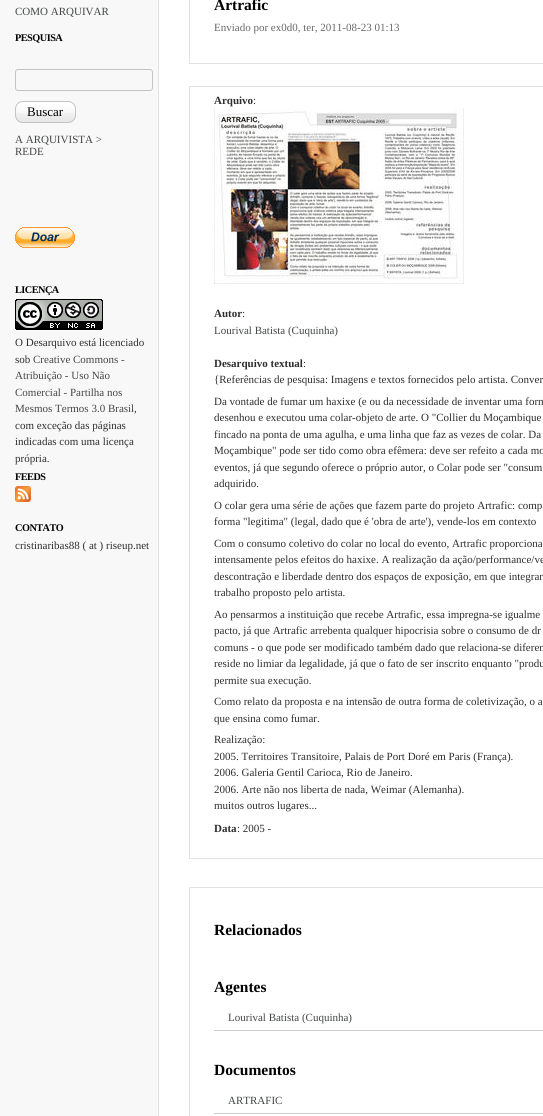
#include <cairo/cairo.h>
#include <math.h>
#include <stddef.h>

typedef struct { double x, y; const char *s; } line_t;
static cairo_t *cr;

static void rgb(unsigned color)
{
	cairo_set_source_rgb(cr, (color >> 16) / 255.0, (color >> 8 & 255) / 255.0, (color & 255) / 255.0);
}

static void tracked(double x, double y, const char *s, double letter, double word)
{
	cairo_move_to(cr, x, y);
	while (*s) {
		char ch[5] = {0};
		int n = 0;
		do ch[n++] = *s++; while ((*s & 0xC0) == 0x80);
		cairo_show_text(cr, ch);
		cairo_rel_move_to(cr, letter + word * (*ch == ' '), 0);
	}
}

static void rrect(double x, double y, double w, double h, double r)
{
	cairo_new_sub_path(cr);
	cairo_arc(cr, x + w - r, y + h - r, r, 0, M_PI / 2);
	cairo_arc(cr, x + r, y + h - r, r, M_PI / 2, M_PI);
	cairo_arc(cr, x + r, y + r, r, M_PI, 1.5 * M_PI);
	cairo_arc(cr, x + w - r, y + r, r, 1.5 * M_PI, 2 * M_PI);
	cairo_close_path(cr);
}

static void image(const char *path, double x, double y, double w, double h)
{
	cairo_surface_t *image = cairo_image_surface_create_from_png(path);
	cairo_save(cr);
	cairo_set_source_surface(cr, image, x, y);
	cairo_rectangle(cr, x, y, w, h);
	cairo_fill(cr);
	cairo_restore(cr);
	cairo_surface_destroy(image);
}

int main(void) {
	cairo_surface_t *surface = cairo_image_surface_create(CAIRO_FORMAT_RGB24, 543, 1116);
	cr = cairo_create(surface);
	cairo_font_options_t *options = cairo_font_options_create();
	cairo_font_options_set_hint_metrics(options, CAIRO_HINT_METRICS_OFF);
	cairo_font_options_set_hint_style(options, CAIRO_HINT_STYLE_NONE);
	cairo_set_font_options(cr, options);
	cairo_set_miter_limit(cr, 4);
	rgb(0xf8f8f8);
	cairo_paint(cr);
	rrect(15.5, 69.5, 137, 21, 2.5);
	rgb(0xc4c4c4);
	cairo_set_line_width(cr, 1);
	cairo_stroke(cr);
	image("img/1.png", 15, 102, 61, 21);
	rrect(15.5, 101.5, 60, 21, 7.5);
	cairo_stroke(cr);
	image("img/2.png", 15, 227, 60, 21);
	image("img/3.png", 15, 299, 88, 31);
	image("img/4.png", 15, 486, 16, 16);
	rgb(0xffffff);
	cairo_rectangle(cr, 158.5, -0.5, 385, 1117);
	cairo_fill_preserve(cr);
	rgb(0xe1e1e1);
	cairo_stroke(cr);
	cairo_rectangle(cr, 189.5, -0.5, 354, 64);
	cairo_stroke(cr);
	cairo_rectangle(cr, 189.5, 86.5, 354, 772);
	cairo_stroke(cr);
	image("img/5.png", 214, 108, 250, 176);
	cairo_rectangle(cr, 189.5, 887.5, 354, 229);
	cairo_stroke(cr);
	rgb(0xcccccc);
	cairo_rectangle(cr, 214, 1030, 329, 1);
	cairo_fill(cr);
	cairo_rectangle(cr, 214, 1113, 329, 1);
	cairo_fill(cr);
	cairo_select_font_face(cr, "Liberation Serif", CAIRO_FONT_SLANT_NORMAL, CAIRO_FONT_WEIGHT_NORMAL);
	cairo_set_font_size(cr, 11);
	rgb(0x444647);
	cairo_move_to(cr, 15, 15);
	cairo_show_text(cr, "COMO ARQUIVAR");
	cairo_select_font_face(cr, "Liberation Serif", CAIRO_FONT_SLANT_NORMAL, CAIRO_FONT_WEIGHT_BOLD);
	cairo_set_font_size(cr, 10.25);
	rgb(0x000000);
	tracked(15, 41, "PESQUISA", -0.5, 0);
	cairo_select_font_face(cr, "Liberation Serif", CAIRO_FONT_SLANT_NORMAL, CAIRO_FONT_WEIGHT_NORMAL);
	cairo_set_font_size(cr, 13);
	cairo_move_to(cr, 27, 116);
	cairo_show_text(cr, "Buscar");
	cairo_set_font_size(cr, 11);
	rgb(0x444647);
	cairo_move_to(cr, 15, 143);
	cairo_show_text(cr, "A ARQUIVISTA >");
	cairo_move_to(cr, 15, 155);
	cairo_show_text(cr, "REDE");
	cairo_select_font_face(cr, "Liberation Serif", CAIRO_FONT_SLANT_NORMAL, CAIRO_FONT_WEIGHT_BOLD);
	cairo_set_font_size(cr, 10.25);
	rgb(0x000000);
	tracked(15, 293, "LICENÇA", -0.5, 0);
	cairo_select_font_face(cr, "Liberation Serif", CAIRO_FONT_SLANT_NORMAL, CAIRO_FONT_WEIGHT_NORMAL);
	cairo_set_font_size(cr, 11);
	rgb(0x2e2e2e);
	cairo_move_to(cr, 15, 346);
	cairo_show_text(cr, "O Desarquivo está licenciado");
	cairo_move_to(cr, 15, 363);
	cairo_show_text(cr, "sob");
	rgb(0x444647);
	{
		static const line_t items[] = {
			{33, 363, "Creative Commons -"},
			{15, 379, "Atribuição - Uso Não"},
			{15, 396, "Comercial - Partilha nos"},
			{15, 412, "Mesmos Termos 3.0 Brasil"},
		};
		for (size_t i = 0; i < sizeof items / sizeof *items; i++) {
			cairo_move_to(cr, items[i].x, items[i].y);
			cairo_show_text(cr, items[i].s);
		}
	}
	rgb(0x2e2e2e);
	{
		static const line_t items[] = {
			{134, 412, ","},
			{15, 429, "com exceção das páginas"},
			{15, 445, "indicadas com uma licença"},
			{15, 462, "própria."},
		};
		for (size_t i = 0; i < sizeof items / sizeof *items; i++) {
			cairo_move_to(cr, items[i].x, items[i].y);
			cairo_show_text(cr, items[i].s);
		}
	}
	cairo_select_font_face(cr, "Liberation Serif", CAIRO_FONT_SLANT_NORMAL, CAIRO_FONT_WEIGHT_BOLD);
	cairo_set_font_size(cr, 10.25);
	rgb(0x000000);
	tracked(15, 480, "FEEDS", -0.5, 0);
	tracked(15, 531, "CONTATO", -0.5, 0);
	cairo_select_font_face(cr, "Liberation Serif", CAIRO_FONT_SLANT_NORMAL, CAIRO_FONT_WEIGHT_NORMAL);
	cairo_set_font_size(cr, 11);
	rgb(0x2e2e2e);
	cairo_move_to(cr, 15, 549);
	cairo_show_text(cr, "cristinaribas88 ( at ) riseup.net");
	cairo_select_font_face(cr, "Liberation Serif", CAIRO_FONT_SLANT_NORMAL, CAIRO_FONT_WEIGHT_BOLD);
	cairo_set_font_size(cr, 15.5);
	rgb(0x000000);
	cairo_move_to(cr, 214, 10);
	cairo_show_text(cr, "Artrafic");
	cairo_select_font_face(cr, "Liberation Serif", CAIRO_FONT_SLANT_NORMAL, CAIRO_FONT_WEIGHT_NORMAL);
	cairo_set_font_size(cr, 11);
	rgb(0x696969);
	cairo_move_to(cr, 214, 31);
	cairo_show_text(cr, "Enviado por ex0d0, ter, 2011-08-23 01:13");
	cairo_select_font_face(cr, "Liberation Serif", CAIRO_FONT_SLANT_NORMAL, CAIRO_FONT_WEIGHT_BOLD);
	rgb(0x2e2e2e);
	cairo_move_to(cr, 214, 104);
	cairo_show_text(cr, "Arquivo");
	cairo_select_font_face(cr, "Liberation Serif", CAIRO_FONT_SLANT_NORMAL, CAIRO_FONT_WEIGHT_NORMAL);
	cairo_move_to(cr, 253, 104);
	cairo_show_text(cr, ":");
	cairo_select_font_face(cr, "Liberation Serif", CAIRO_FONT_SLANT_NORMAL, CAIRO_FONT_WEIGHT_BOLD);
	cairo_move_to(cr, 214, 317);
	cairo_show_text(cr, "Autor");
	cairo_select_font_face(cr, "Liberation Serif", CAIRO_FONT_SLANT_NORMAL, CAIRO_FONT_WEIGHT_NORMAL);
	cairo_move_to(cr, 242, 317);
	cairo_show_text(cr, ":");
	rgb(0x444647);
	cairo_move_to(cr, 214, 334);
	cairo_show_text(cr, "Lourival Batista (Cuquinha)");
	cairo_select_font_face(cr, "Liberation Serif", CAIRO_FONT_SLANT_NORMAL, CAIRO_FONT_WEIGHT_BOLD);
	rgb(0x2e2e2e);
	cairo_move_to(cr, 214, 367);
	cairo_show_text(cr, "Desarquivo textual");
	cairo_select_font_face(cr, "Liberation Serif", CAIRO_FONT_SLANT_NORMAL, CAIRO_FONT_WEIGHT_NORMAL);
	{
		static const line_t items[] = {
			{303, 367, ":"},
			{214, 383, "{Referências de pesquisa: Imagens e textos fornecidos pelo artista. Conver"},
			{214, 405, "Da vontade de fumar um haxixe (e ou da necessidade de inventar uma form"},
			{214, 421, "desenhou e executou uma colar-objeto de arte. O \"Collier du Moçambique"},
			{214, 438, "fincado na ponta de uma agulha, e uma linha que faz as vezes de colar. Da"},
			{214, 454, "Moçambique\" pode ser tido como obra efêmera: deve ser refeito a cada mo"},
			{214, 471, "eventos, já que segundo oferece o próprio autor, o Colar pode ser \"consum"},
			{214, 487, "adquirido."},
			{214, 509, "O colar gera uma série de ações que fazem parte do projeto Artrafic: comp"},
			{214, 525, "forma \"legitima\" (legal, dado que é 'obra de arte'), vende-los em contexto"},
			{214, 547, "Com o consumo coletivo do colar no local do evento, Artrafic proporciona"},
			{214, 563, "intensamente pelos efeitos do haxixe. A realização da ação/performance/ve"},
			{214, 580, "descontração e liberdade dentro dos espaços de exposição, em que integrar"},
			{214, 596, "trabalho proposto pelo artista."},
			{214, 618, "Ao pensarmos a instituição que recebe Artrafic, essa impregna-se igualme"},
			{214, 634, "pacto, já que Artrafic arrebenta qualquer hipocrisia sobre o consumo de dr"},
			{214, 651, "comuns - o que pode ser modificado também dado que relaciona-se diferen"},
			{214, 667, "reside no limiar da legalidade, já que o fato de ser inscrito enquanto \"produ"},
			{214, 684, "permite sua execução."},
			{214, 705, "Como relato da proposta e na intensão de outra forma de coletivização, o a"},
			{214, 722, "que ensina como fumar."},
			{214, 743, "Realização:"},
			{214, 760, "2005. Territoires Transitoire, Palais de Port Doré em Paris (França)."},
			{214, 776, "2006. Galeria Gentil Carioca, Rio de Janeiro."},
			{214, 793, "2006. Arte não nos liberta de nada, Weimar (Alemanha)."},
			{214, 809, "muitos outros lugares..."},
		};
		for (size_t i = 0; i < sizeof items / sizeof *items; i++) {
			cairo_move_to(cr, items[i].x, items[i].y);
			cairo_show_text(cr, items[i].s);
		}
	}
	cairo_select_font_face(cr, "Liberation Serif", CAIRO_FONT_SLANT_NORMAL, CAIRO_FONT_WEIGHT_BOLD);
	cairo_move_to(cr, 214, 832);
	cairo_show_text(cr, "Data");
	cairo_select_font_face(cr, "Liberation Serif", CAIRO_FONT_SLANT_NORMAL, CAIRO_FONT_WEIGHT_NORMAL);
	cairo_move_to(cr, 237, 832);
	cairo_show_text(cr, ": 2005 -");
	cairo_select_font_face(cr, "Liberation Serif", CAIRO_FONT_SLANT_NORMAL, CAIRO_FONT_WEIGHT_BOLD);
	cairo_set_font_size(cr, 15.5);
	rgb(0x000000);
	cairo_move_to(cr, 214, 935);
	cairo_show_text(cr, "Relacionados");
	cairo_move_to(cr, 214, 992);
	cairo_show_text(cr, "Agentes");
	cairo_select_font_face(cr, "Liberation Serif", CAIRO_FONT_SLANT_NORMAL, CAIRO_FONT_WEIGHT_NORMAL);
	cairo_set_font_size(cr, 11);
	rgb(0x444647);
	cairo_move_to(cr, 228, 1021);
	cairo_show_text(cr, "Lourival Batista (Cuquinha)");
	cairo_select_font_face(cr, "Liberation Serif", CAIRO_FONT_SLANT_NORMAL, CAIRO_FONT_WEIGHT_BOLD);
	cairo_set_font_size(cr, 15.5);
	rgb(0x000000);
	cairo_move_to(cr, 214, 1075);
	cairo_show_text(cr, "Documentos");
	cairo_select_font_face(cr, "Liberation Serif", CAIRO_FONT_SLANT_NORMAL, CAIRO_FONT_WEIGHT_NORMAL);
	cairo_set_font_size(cr, 11);
	rgb(0x444647);
	cairo_move_to(cr, 228, 1104);
	cairo_show_text(cr, "ARTRAFIC");
	cairo_surface_write_to_png(surface, "page.png");
	cairo_font_options_destroy(options);
	cairo_destroy(cr);
	cairo_surface_destroy(surface);
	return 0;
}
